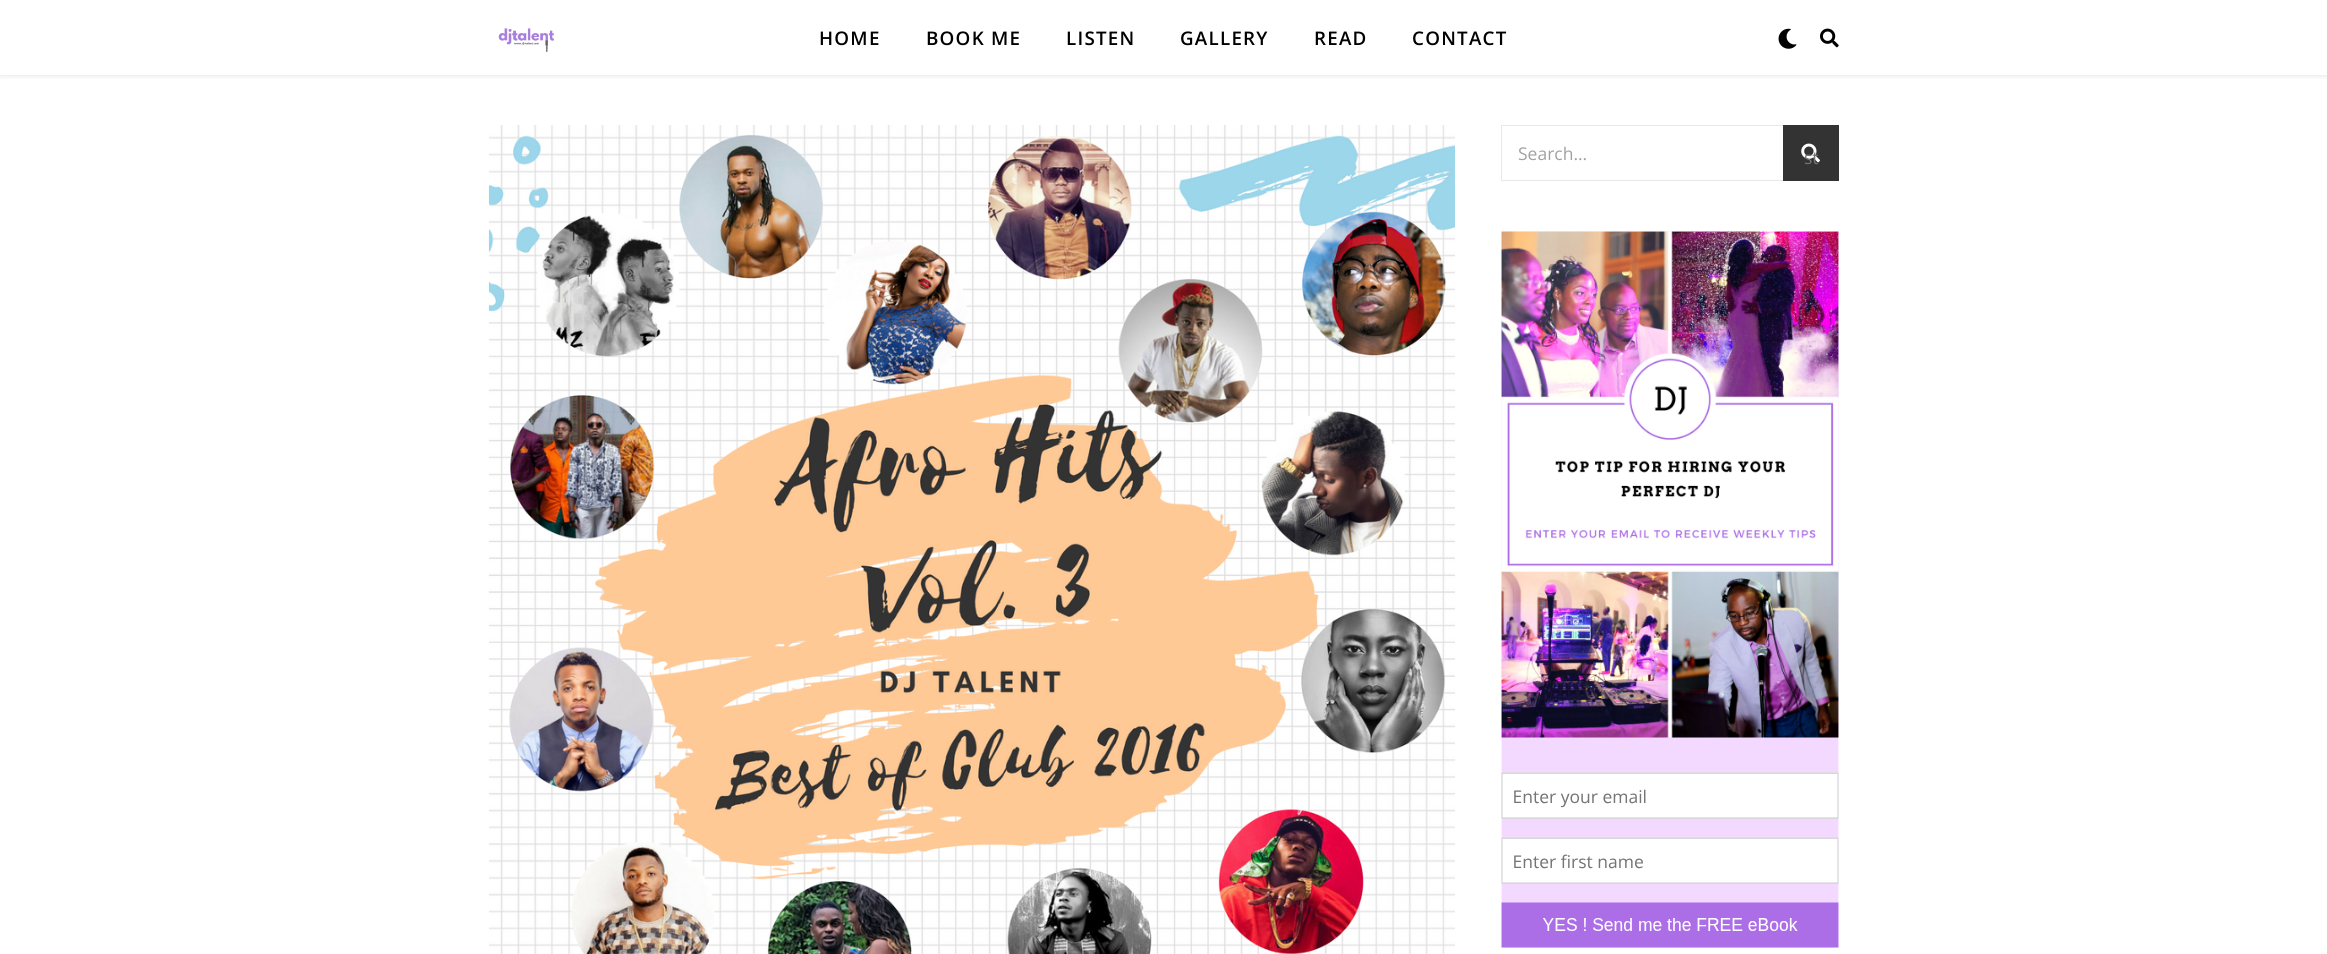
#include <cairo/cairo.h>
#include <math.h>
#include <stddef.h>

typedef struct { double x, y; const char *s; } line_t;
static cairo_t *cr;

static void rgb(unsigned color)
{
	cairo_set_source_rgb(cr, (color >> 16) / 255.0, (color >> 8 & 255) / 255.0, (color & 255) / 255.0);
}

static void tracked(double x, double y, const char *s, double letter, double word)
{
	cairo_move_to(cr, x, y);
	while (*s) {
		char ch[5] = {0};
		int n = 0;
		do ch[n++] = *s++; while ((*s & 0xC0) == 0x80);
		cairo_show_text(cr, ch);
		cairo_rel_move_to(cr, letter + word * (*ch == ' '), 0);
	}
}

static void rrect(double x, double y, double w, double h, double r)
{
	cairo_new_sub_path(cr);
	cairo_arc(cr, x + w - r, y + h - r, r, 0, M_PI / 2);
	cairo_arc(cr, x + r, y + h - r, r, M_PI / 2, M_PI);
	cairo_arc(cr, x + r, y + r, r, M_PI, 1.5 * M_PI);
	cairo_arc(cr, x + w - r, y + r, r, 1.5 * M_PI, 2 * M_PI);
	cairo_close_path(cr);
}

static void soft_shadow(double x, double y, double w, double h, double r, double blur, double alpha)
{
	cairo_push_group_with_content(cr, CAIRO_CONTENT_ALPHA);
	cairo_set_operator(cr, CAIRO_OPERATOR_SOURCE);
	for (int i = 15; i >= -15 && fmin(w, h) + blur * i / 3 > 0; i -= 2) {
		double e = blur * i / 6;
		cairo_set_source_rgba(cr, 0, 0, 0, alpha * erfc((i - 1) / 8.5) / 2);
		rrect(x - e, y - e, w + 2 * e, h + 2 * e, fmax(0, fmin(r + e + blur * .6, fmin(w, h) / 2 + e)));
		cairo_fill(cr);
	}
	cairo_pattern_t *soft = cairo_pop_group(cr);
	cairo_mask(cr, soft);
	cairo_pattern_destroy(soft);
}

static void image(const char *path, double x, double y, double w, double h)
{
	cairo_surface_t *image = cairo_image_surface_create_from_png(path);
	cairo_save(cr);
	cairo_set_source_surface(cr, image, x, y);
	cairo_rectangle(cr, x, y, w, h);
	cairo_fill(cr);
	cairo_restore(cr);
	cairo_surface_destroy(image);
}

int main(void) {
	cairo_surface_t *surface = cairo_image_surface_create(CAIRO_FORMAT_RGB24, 2327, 954);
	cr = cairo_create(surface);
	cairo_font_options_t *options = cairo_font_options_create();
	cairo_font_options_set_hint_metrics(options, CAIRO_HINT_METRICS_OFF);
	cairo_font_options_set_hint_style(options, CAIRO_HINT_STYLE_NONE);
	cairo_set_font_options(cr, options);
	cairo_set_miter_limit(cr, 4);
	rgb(0xffffff);
	cairo_paint(cr);
	cairo_save(cr);
	cairo_rectangle(cr, 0, 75, 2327, 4);
	cairo_clip(cr);
	rgb(0x000000);
	soft_shadow(0, 1, 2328, 75, 0, 3, 0.1);
	cairo_restore(cr);
	image("img/1.png", 498, 28, 56, 24);
	image("img/2.png", 1778, 28, 19, 21);
	image("img/3.png", 1820, 28, 19, 20);
	image("img/4.png", 488, 125, 967, 829);
	cairo_rectangle(cr, 1501.5, 125.5, 337, 55);
	rgb(0xe8e8e8);
	cairo_set_line_width(cr, 1);
	cairo_stroke(cr);
	rgb(0x333333);
	cairo_rectangle(cr, 1783, 125, 56, 56);
	cairo_fill(cr);
	image("img/5.png", 1801, 143, 19, 20);
	image("img/6.png", 1501, 231, 338, 717);
	cairo_select_font_face(cr, "Open Sans SemiBold", CAIRO_FONT_SLANT_NORMAL, CAIRO_FONT_WEIGHT_NORMAL);
	cairo_set_font_size(cr, 18.75);
	rgb(0x000000);
	{
		static const line_t items[] = {
			{819, 45, "HOME"},
			{926, 45, "BOOK ME"},
			{1066, 45, "LISTEN"},
			{1180, 45, "GALLERY"},
			{1314, 45, "READ"},
			{1412, 45, "CONTACT"},
		};
		for (size_t i = 0; i < sizeof items / sizeof *items; i++) {
			tracked(items[i].x, items[i].y, items[i].s, 1.25, 0);
		}
	}
	cairo_select_font_face(cr, "Open Sans", CAIRO_FONT_SLANT_NORMAL, CAIRO_FONT_WEIGHT_NORMAL);
	cairo_set_font_size(cr, 17.5);
	rgb(0xa1a1a1);
	cairo_move_to(cr, 1518, 160);
	cairo_show_text(cr, "Search...");
	rgb(0x757575);
	cairo_move_to(cr, 1804, 164);
	cairo_show_text(cr, "st");
	cairo_surface_write_to_png(surface, "page.png");
	cairo_font_options_destroy(options);
	cairo_destroy(cr);
	cairo_surface_destroy(surface);
	return 0;
}
